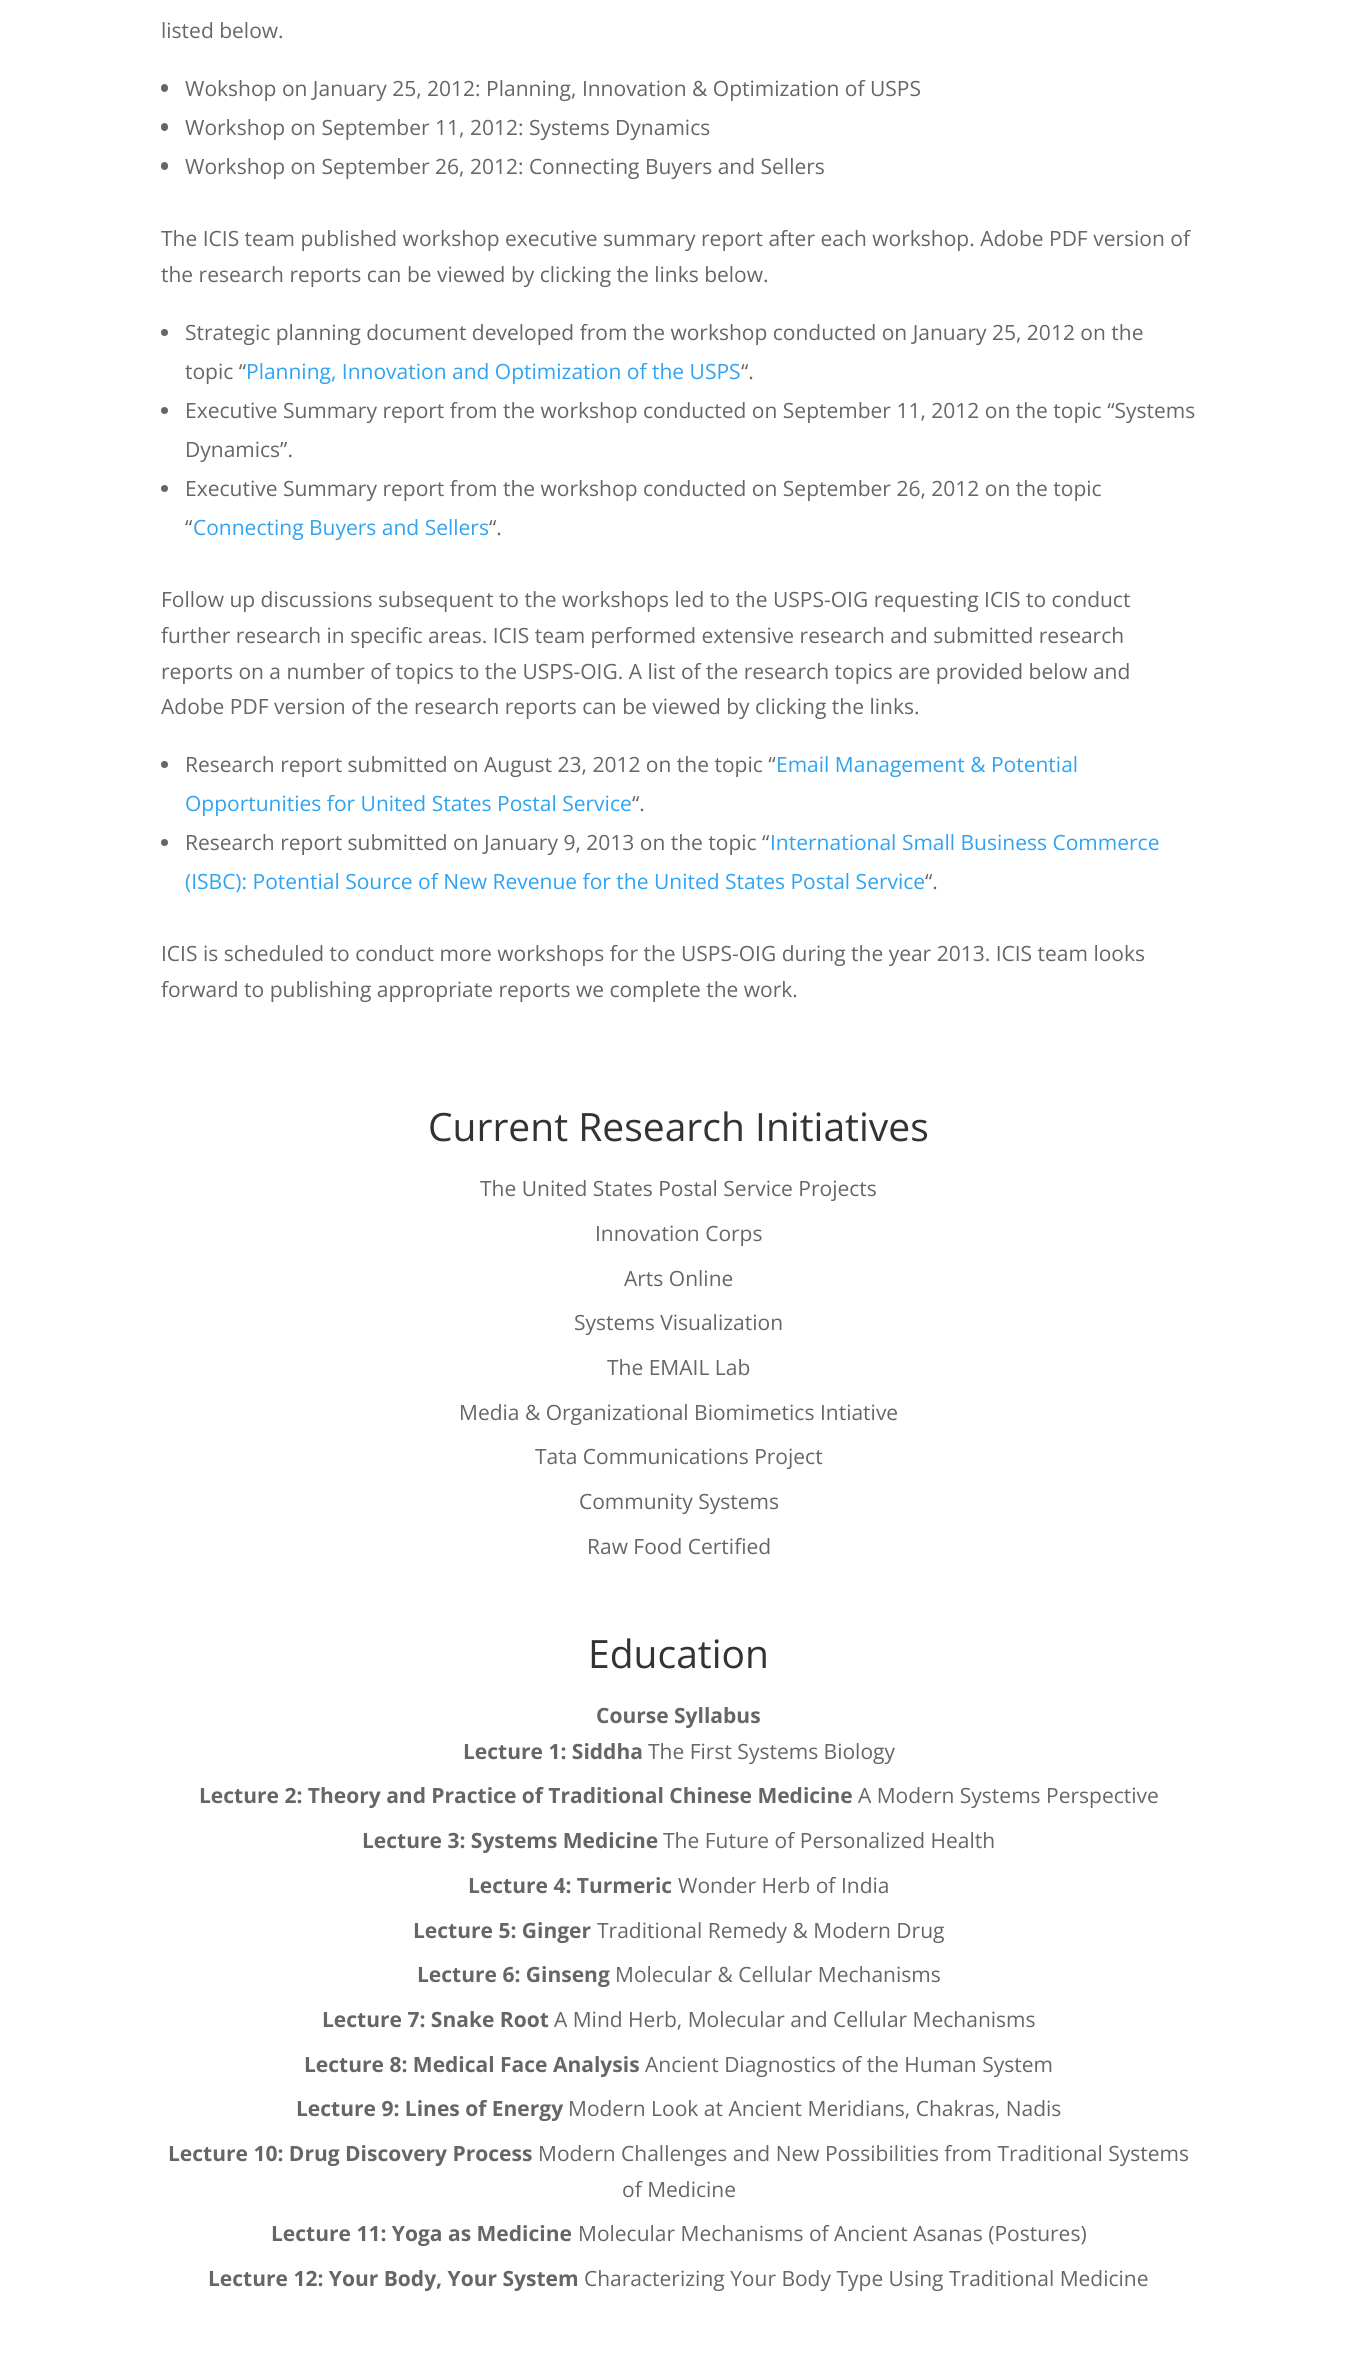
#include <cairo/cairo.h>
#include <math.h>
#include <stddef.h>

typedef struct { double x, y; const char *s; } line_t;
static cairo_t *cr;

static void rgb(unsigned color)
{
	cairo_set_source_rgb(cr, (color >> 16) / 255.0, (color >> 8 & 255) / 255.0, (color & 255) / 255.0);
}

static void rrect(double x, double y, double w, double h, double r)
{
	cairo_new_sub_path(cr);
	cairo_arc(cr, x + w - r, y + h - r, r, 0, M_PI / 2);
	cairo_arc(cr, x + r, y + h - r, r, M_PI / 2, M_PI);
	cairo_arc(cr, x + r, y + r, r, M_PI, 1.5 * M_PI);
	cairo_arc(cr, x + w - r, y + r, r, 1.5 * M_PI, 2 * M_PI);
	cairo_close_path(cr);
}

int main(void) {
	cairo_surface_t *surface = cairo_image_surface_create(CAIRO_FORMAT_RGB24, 1357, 2360);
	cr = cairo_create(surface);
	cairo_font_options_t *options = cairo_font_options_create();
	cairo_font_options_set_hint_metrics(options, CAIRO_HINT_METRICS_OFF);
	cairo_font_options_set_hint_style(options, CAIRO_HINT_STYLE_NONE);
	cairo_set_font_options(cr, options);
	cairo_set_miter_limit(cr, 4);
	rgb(0xffffff);
	cairo_paint(cr);
	rgb(0x666666);
	rrect(161, 84, 7, 8, 3.5);
	cairo_fill(cr);
	rrect(161, 123, 7, 8, 3.5);
	cairo_fill(cr);
	rrect(161, 162, 7, 8, 3.5);
	cairo_fill(cr);
	cairo_arc(cr, 164.5, 332.5, 3.5, 0, 2 * M_PI);
	cairo_fill(cr);
	cairo_arc(cr, 164.5, 410.5, 3.5, 0, 2 * M_PI);
	cairo_fill(cr);
	cairo_arc(cr, 164.5, 488.5, 3.5, 0, 2 * M_PI);
	cairo_fill(cr);
	cairo_arc(cr, 164.5, 764.5, 3.5, 0, 2 * M_PI);
	cairo_fill(cr);
	cairo_arc(cr, 164.5, 842.5, 3.5, 0, 2 * M_PI);
	cairo_fill(cr);
	cairo_select_font_face(cr, "Open Sans", CAIRO_FONT_SLANT_NORMAL, CAIRO_FONT_WEIGHT_NORMAL);
	cairo_set_font_size(cr, 21);
	{
		static const line_t items[] = {
			{161, 38, "listed below."},
			{185, 96, "Wokshop on January 25, 2012: Planning, Innovation & Optimization of USPS"},
			{185, 135, "Workshop on September 11, 2012: Systems Dynamics"},
			{185, 174, "Workshop on September 26, 2012: Connecting Buyers and Sellers"},
			{161, 246, "The ICIS team published workshop executive summary report after each workshop. Adobe PDF version of"},
			{161, 282, "the research reports can be viewed by clicking the links below."},
			{185, 340, "Strategic planning document developed from the workshop conducted on January 25, 2012 on the"},
			{185, 379, "topic “"},
		};
		for (size_t i = 0; i < sizeof items / sizeof *items; i++) {
			cairo_move_to(cr, items[i].x, items[i].y);
			cairo_show_text(cr, items[i].s);
		}
	}
	rgb(0x2ea3f2);
	cairo_move_to(cr, 246, 379);
	cairo_show_text(cr, "Planning, Innovation and Optimization of the USPS");
	rgb(0x666666);
	{
		static const line_t items[] = {
			{741, 379, "“."},
			{185, 418, "Executive Summary report from the workshop conducted on September 11, 2012 on the topic “Systems"},
			{185, 457, "Dynamics”."},
			{185, 496, "Executive Summary report from the workshop conducted on September 26, 2012 on the topic"},
			{185, 535, "“"},
		};
		for (size_t i = 0; i < sizeof items / sizeof *items; i++) {
			cairo_move_to(cr, items[i].x, items[i].y);
			cairo_show_text(cr, items[i].s);
		}
	}
	rgb(0x2ea3f2);
	cairo_move_to(cr, 193, 535);
	cairo_show_text(cr, "Connecting Buyers and Sellers");
	rgb(0x666666);
	{
		static const line_t items[] = {
			{489, 535, "“."},
			{161, 607, "Follow up discussions subsequent to the workshops led to the USPS-OIG requesting ICIS to conduct"},
			{161, 643, "further research in specific areas. ICIS team performed extensive research and submitted research"},
			{161, 679, "reports on a number of topics to the USPS-OIG. A list of the research topics are provided below and"},
			{161, 714, "Adobe PDF version of the research reports can be viewed by clicking the links."},
			{185, 772, "Research report submitted on August 23, 2012 on the topic “"},
		};
		for (size_t i = 0; i < sizeof items / sizeof *items; i++) {
			cairo_move_to(cr, items[i].x, items[i].y);
			cairo_show_text(cr, items[i].s);
		}
	}
	rgb(0x2ea3f2);
	cairo_move_to(cr, 776, 772);
	cairo_show_text(cr, "Email Management & Potential");
	cairo_move_to(cr, 185, 811);
	cairo_show_text(cr, "Opportunities for United States Postal Service");
	rgb(0x666666);
	cairo_move_to(cr, 632, 811);
	cairo_show_text(cr, "“.");
	cairo_move_to(cr, 185, 850);
	cairo_show_text(cr, "Research report submitted on January 9, 2013 on the topic “");
	rgb(0x2ea3f2);
	cairo_move_to(cr, 770, 850);
	cairo_show_text(cr, "International Small Business Commerce");
	cairo_move_to(cr, 185, 889);
	cairo_show_text(cr, "(ISBC): Potential Source of New Revenue for the United States Postal Service");
	rgb(0x666666);
	{
		static const line_t items[] = {
			{925, 889, "“."},
			{161, 961, "ICIS is scheduled to conduct more workshops for the USPS-OIG during the year 2013. ICIS team looks"},
			{161, 997, "forward to publishing appropriate reports we complete the work."},
		};
		for (size_t i = 0; i < sizeof items / sizeof *items; i++) {
			cairo_move_to(cr, items[i].x, items[i].y);
			cairo_show_text(cr, items[i].s);
		}
	}
	cairo_set_font_size(cr, 39);
	rgb(0x333333);
	cairo_move_to(cr, 428, 1141);
	cairo_show_text(cr, "Current Research Initiatives");
	cairo_set_font_size(cr, 21);
	rgb(0x666666);
	{
		static const line_t items[] = {
			{480, 1196, "The United States Postal Service Projects"},
			{595, 1241, "Innovation Corps"},
			{624, 1286, "Arts Online"},
			{574, 1330, "Systems Visualization"},
			{607, 1375, "The EMAIL Lab"},
			{459, 1420, "Media & Organizational Biomimetics Intiative"},
			{535, 1464, "Tata Communications Project"},
			{579, 1509, "Community Systems"},
			{587, 1554, "Raw Food Certified"},
		};
		for (size_t i = 0; i < sizeof items / sizeof *items; i++) {
			cairo_move_to(cr, items[i].x, items[i].y);
			cairo_show_text(cr, items[i].s);
		}
	}
	cairo_set_font_size(cr, 39);
	rgb(0x333333);
	cairo_move_to(cr, 588, 1668);
	cairo_show_text(cr, "Education");
	cairo_select_font_face(cr, "Open Sans", CAIRO_FONT_SLANT_NORMAL, CAIRO_FONT_WEIGHT_BOLD);
	cairo_set_font_size(cr, 21);
	rgb(0x666666);
	cairo_move_to(cr, 596, 1723);
	cairo_show_text(cr, "Course Syllabus");
	cairo_move_to(cr, 463, 1759);
	cairo_show_text(cr, "Lecture 1: Siddha");
	cairo_select_font_face(cr, "Open Sans", CAIRO_FONT_SLANT_NORMAL, CAIRO_FONT_WEIGHT_NORMAL);
	cairo_move_to(cr, 648, 1759);
	cairo_show_text(cr, "The First Systems Biology");
	cairo_select_font_face(cr, "Open Sans", CAIRO_FONT_SLANT_NORMAL, CAIRO_FONT_WEIGHT_BOLD);
	cairo_move_to(cr, 199, 1803);
	cairo_show_text(cr, "Lecture 2: Theory and Practice of Traditional Chinese Medicine");
	cairo_select_font_face(cr, "Open Sans", CAIRO_FONT_SLANT_NORMAL, CAIRO_FONT_WEIGHT_NORMAL);
	cairo_move_to(cr, 858, 1803);
	cairo_show_text(cr, "A Modern Systems Perspective");
	cairo_select_font_face(cr, "Open Sans", CAIRO_FONT_SLANT_NORMAL, CAIRO_FONT_WEIGHT_BOLD);
	cairo_move_to(cr, 362, 1848);
	cairo_show_text(cr, "Lecture 3: Systems Medicine");
	cairo_select_font_face(cr, "Open Sans", CAIRO_FONT_SLANT_NORMAL, CAIRO_FONT_WEIGHT_NORMAL);
	cairo_move_to(cr, 663, 1848);
	cairo_show_text(cr, "The Future of Personalized Health");
	cairo_select_font_face(cr, "Open Sans", CAIRO_FONT_SLANT_NORMAL, CAIRO_FONT_WEIGHT_BOLD);
	cairo_move_to(cr, 468, 1893);
	cairo_show_text(cr, "Lecture 4: Turmeric");
	cairo_select_font_face(cr, "Open Sans", CAIRO_FONT_SLANT_NORMAL, CAIRO_FONT_WEIGHT_NORMAL);
	cairo_move_to(cr, 678, 1893);
	cairo_show_text(cr, "Wonder Herb of India");
	cairo_select_font_face(cr, "Open Sans", CAIRO_FONT_SLANT_NORMAL, CAIRO_FONT_WEIGHT_BOLD);
	cairo_move_to(cr, 413, 1938);
	cairo_show_text(cr, "Lecture 5: Ginger");
	cairo_select_font_face(cr, "Open Sans", CAIRO_FONT_SLANT_NORMAL, CAIRO_FONT_WEIGHT_NORMAL);
	cairo_move_to(cr, 597, 1938);
	cairo_show_text(cr, "Traditional Remedy & Modern Drug");
	cairo_select_font_face(cr, "Open Sans", CAIRO_FONT_SLANT_NORMAL, CAIRO_FONT_WEIGHT_BOLD);
	cairo_move_to(cr, 417, 1982);
	cairo_show_text(cr, "Lecture 6: Ginseng");
	cairo_select_font_face(cr, "Open Sans", CAIRO_FONT_SLANT_NORMAL, CAIRO_FONT_WEIGHT_NORMAL);
	cairo_move_to(cr, 615, 1982);
	cairo_show_text(cr, "Molecular & Cellular Mechanisms");
	cairo_select_font_face(cr, "Open Sans", CAIRO_FONT_SLANT_NORMAL, CAIRO_FONT_WEIGHT_BOLD);
	cairo_move_to(cr, 322, 2027);
	cairo_show_text(cr, "Lecture 7: Snake Root");
	cairo_select_font_face(cr, "Open Sans", CAIRO_FONT_SLANT_NORMAL, CAIRO_FONT_WEIGHT_NORMAL);
	cairo_move_to(cr, 554, 2027);
	cairo_show_text(cr, "A Mind Herb, Molecular and Cellular Mechanisms");
	cairo_select_font_face(cr, "Open Sans", CAIRO_FONT_SLANT_NORMAL, CAIRO_FONT_WEIGHT_BOLD);
	cairo_move_to(cr, 304, 2072);
	cairo_show_text(cr, "Lecture 8: Medical Face Analysis");
	cairo_select_font_face(cr, "Open Sans", CAIRO_FONT_SLANT_NORMAL, CAIRO_FONT_WEIGHT_NORMAL);
	cairo_move_to(cr, 645, 2072);
	cairo_show_text(cr, "Ancient Diagnostics of the Human System");
	cairo_select_font_face(cr, "Open Sans", CAIRO_FONT_SLANT_NORMAL, CAIRO_FONT_WEIGHT_BOLD);
	cairo_move_to(cr, 296, 2116);
	cairo_show_text(cr, "Lecture 9: Lines of Energy");
	cairo_select_font_face(cr, "Open Sans", CAIRO_FONT_SLANT_NORMAL, CAIRO_FONT_WEIGHT_NORMAL);
	cairo_move_to(cr, 568, 2116);
	cairo_show_text(cr, "Modern Look at Ancient Meridians, Chakras, Nadis");
	cairo_select_font_face(cr, "Open Sans", CAIRO_FONT_SLANT_NORMAL, CAIRO_FONT_WEIGHT_BOLD);
	cairo_move_to(cr, 168, 2161);
	cairo_show_text(cr, "Lecture 10: Drug Discovery Process");
	cairo_select_font_face(cr, "Open Sans", CAIRO_FONT_SLANT_NORMAL, CAIRO_FONT_WEIGHT_NORMAL);
	cairo_move_to(cr, 538, 2161);
	cairo_show_text(cr, "Modern Challenges and New Possibilities from Traditional Systems");
	cairo_move_to(cr, 622, 2197);
	cairo_show_text(cr, "of Medicine");
	cairo_select_font_face(cr, "Open Sans", CAIRO_FONT_SLANT_NORMAL, CAIRO_FONT_WEIGHT_BOLD);
	cairo_move_to(cr, 271, 2241);
	cairo_show_text(cr, "Lecture 11: Yoga as Medicine");
	cairo_select_font_face(cr, "Open Sans", CAIRO_FONT_SLANT_NORMAL, CAIRO_FONT_WEIGHT_NORMAL);
	cairo_move_to(cr, 578, 2241);
	cairo_show_text(cr, "Molecular Mechanisms of Ancient Asanas (Postures)");
	cairo_select_font_face(cr, "Open Sans", CAIRO_FONT_SLANT_NORMAL, CAIRO_FONT_WEIGHT_BOLD);
	cairo_move_to(cr, 208, 2286);
	cairo_show_text(cr, "Lecture 12: Your Body, Your System");
	cairo_select_font_face(cr, "Open Sans", CAIRO_FONT_SLANT_NORMAL, CAIRO_FONT_WEIGHT_NORMAL);
	cairo_move_to(cr, 584, 2286);
	cairo_show_text(cr, "Characterizing Your Body Type Using Traditional Medicine");
	cairo_surface_write_to_png(surface, "page.png");
	cairo_font_options_destroy(options);
	cairo_destroy(cr);
	cairo_surface_destroy(surface);
	return 0;
}
